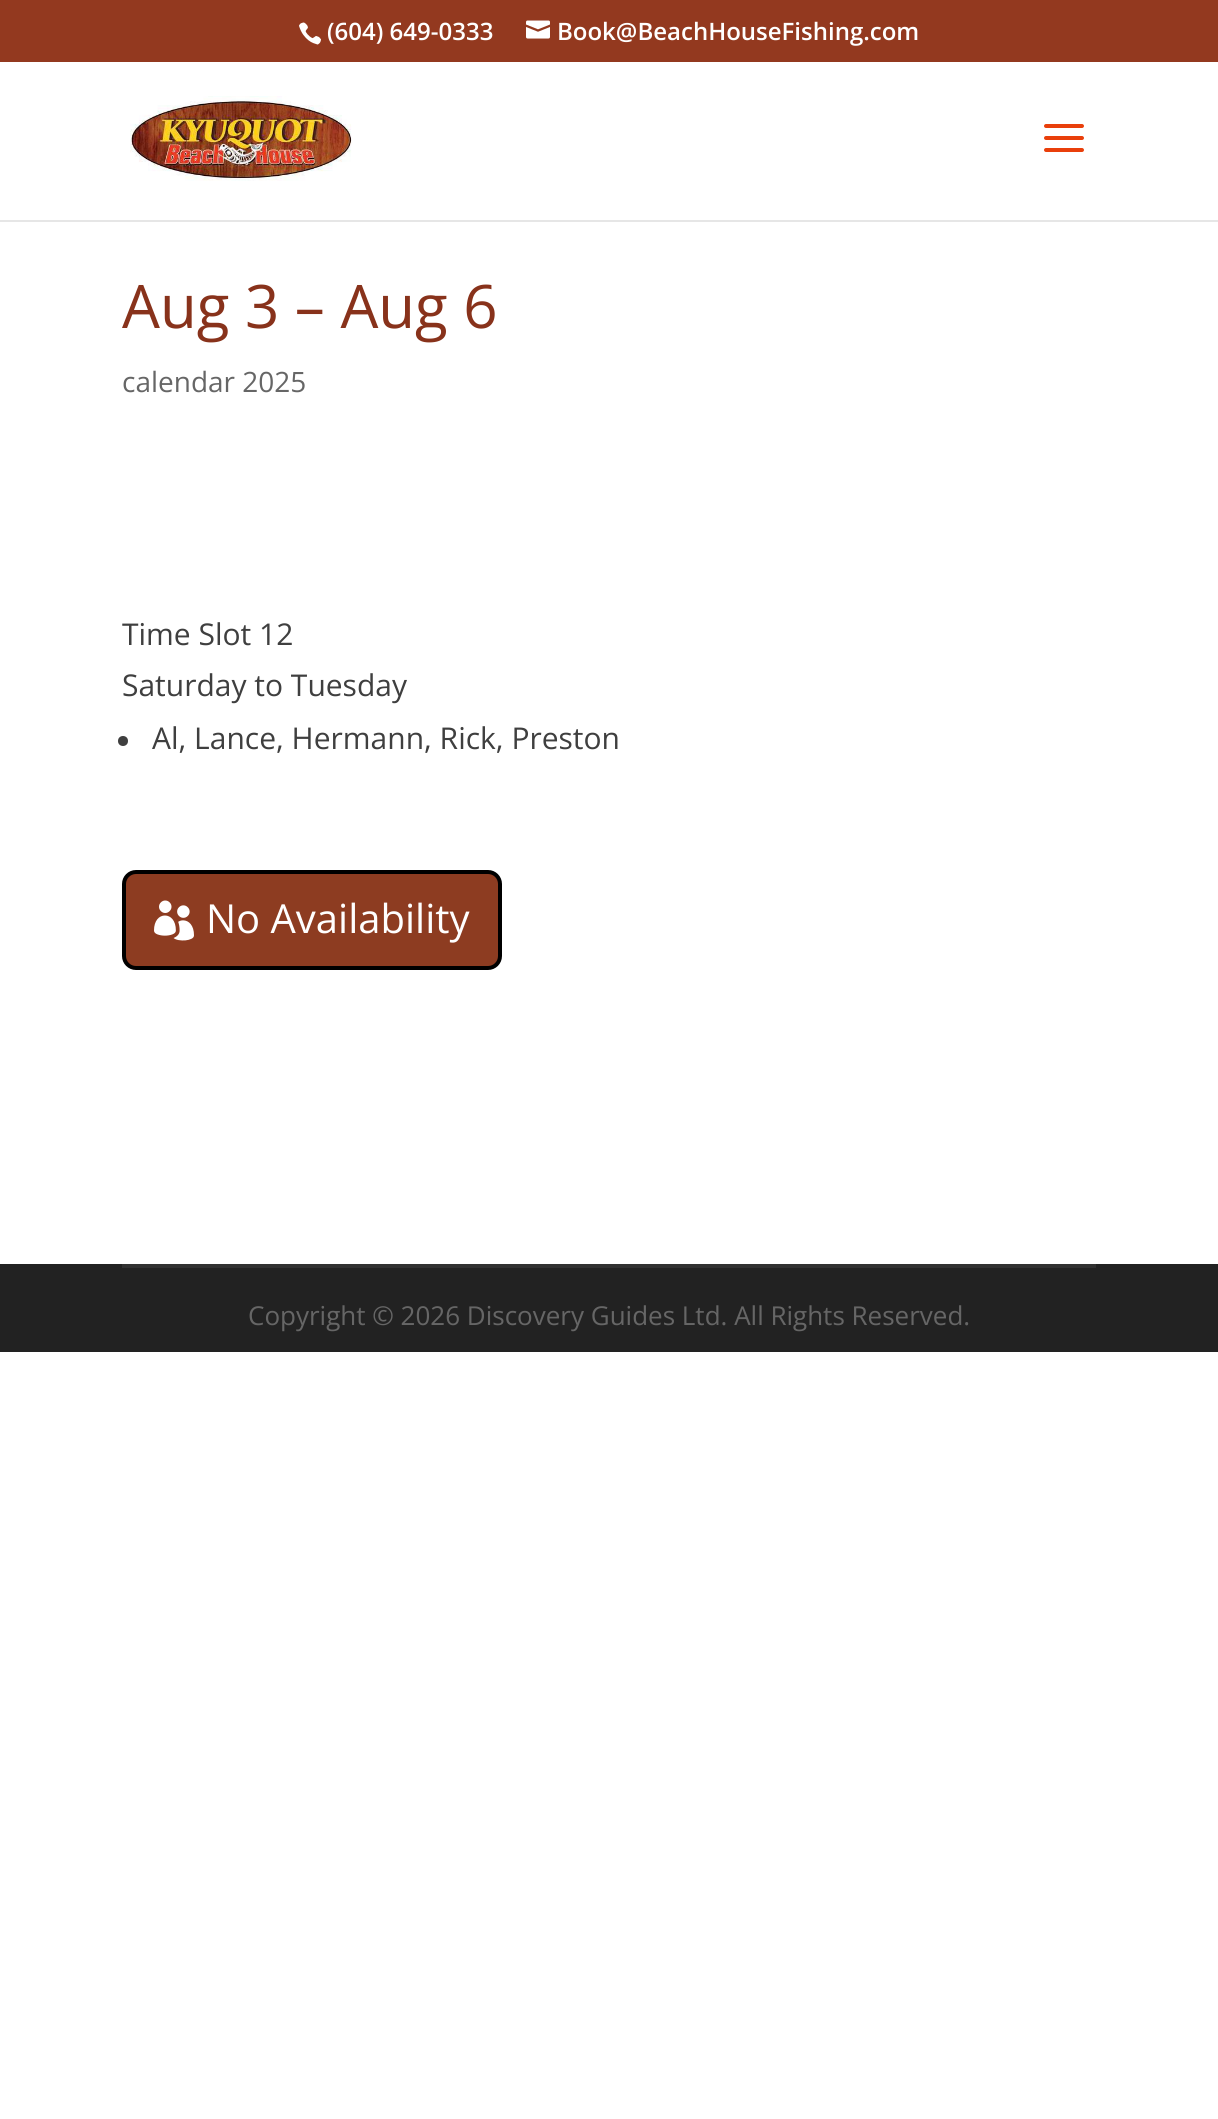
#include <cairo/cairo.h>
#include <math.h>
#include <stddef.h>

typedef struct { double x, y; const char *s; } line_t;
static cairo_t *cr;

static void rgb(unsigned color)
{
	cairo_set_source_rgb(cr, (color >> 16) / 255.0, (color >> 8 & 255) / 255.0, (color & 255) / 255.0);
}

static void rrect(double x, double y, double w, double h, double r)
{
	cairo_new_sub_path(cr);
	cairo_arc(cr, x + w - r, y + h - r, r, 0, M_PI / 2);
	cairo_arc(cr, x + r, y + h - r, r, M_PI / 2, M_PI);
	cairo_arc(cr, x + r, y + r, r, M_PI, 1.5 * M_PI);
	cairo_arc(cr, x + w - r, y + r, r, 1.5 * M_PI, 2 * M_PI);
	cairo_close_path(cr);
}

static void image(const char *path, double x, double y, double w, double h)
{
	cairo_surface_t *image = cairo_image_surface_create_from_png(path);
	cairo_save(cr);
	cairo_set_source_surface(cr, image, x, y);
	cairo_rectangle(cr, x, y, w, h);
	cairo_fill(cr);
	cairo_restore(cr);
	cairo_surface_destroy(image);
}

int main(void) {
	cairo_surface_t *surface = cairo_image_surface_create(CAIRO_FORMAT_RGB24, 1218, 2119);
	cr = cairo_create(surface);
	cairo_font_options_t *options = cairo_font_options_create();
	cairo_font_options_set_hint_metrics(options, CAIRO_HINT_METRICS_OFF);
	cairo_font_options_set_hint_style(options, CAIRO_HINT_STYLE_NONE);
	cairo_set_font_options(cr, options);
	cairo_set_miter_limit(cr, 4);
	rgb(0xffffff);
	cairo_paint(cr);
	rgb(0x93391f);
	cairo_rectangle(cr, 0, 0, 1218, 62);
	cairo_fill(cr);
	image("img/1.png", 299, 22, 22, 23);
	image("img/2.png", 526, 20, 24, 19);
	rgb(0xe6e6e6);
	cairo_rectangle(cr, 0, 220, 1218, 2);
	cairo_fill(cr);
	image("img/3.png", 130, 96, 222, 85);
	image("img/4.png", 1044, 124, 40, 28);
	rgb(0x3f3f3f);
	cairo_arc(cr, 123, 741, 5, 0, 2 * M_PI);
	cairo_fill(cr);
	rgb(0x8d3c21);
	rrect(124, 872, 376, 96, 12);
	cairo_fill_preserve(cr);
	rgb(0x000000);
	cairo_set_line_width(cr, 4);
	cairo_stroke(cr);
	image("img/5.png", 154, 900, 40, 41);
	rgb(0x222222);
	cairo_rectangle(cr, 0, 1264, 1218, 88);
	cairo_fill(cr);
	rgb(0x313131);
	cairo_rectangle(cr, 122, 1264, 974, 4);
	cairo_fill(cr);
	cairo_select_font_face(cr, "Open Sans SemiBold", CAIRO_FONT_SLANT_NORMAL, CAIRO_FONT_WEIGHT_NORMAL);
	cairo_set_font_size(cr, 24);
	rgb(0xffffff);
	cairo_move_to(cr, 327, 40);
	cairo_show_text(cr, "(604) 649-0333");
	cairo_move_to(cr, 557, 40);
	cairo_show_text(cr, "Book@BeachHouseFishing.com");
	cairo_select_font_face(cr, "Open Sans", CAIRO_FONT_SLANT_NORMAL, CAIRO_FONT_WEIGHT_NORMAL);
	cairo_set_font_size(cr, 60);
	rgb(0x88321b);
	cairo_move_to(cr, 122, 328);
	cairo_show_text(cr, "Aug 3 – Aug 6");
	cairo_set_font_size(cr, 28);
	rgb(0x666666);
	cairo_move_to(cr, 122, 392);
	cairo_show_text(cr, "calendar 2025");
	cairo_set_font_size(cr, 30);
	rgb(0x3f3f3f);
	{
		static const line_t items[] = {
			{122, 645, "Time Slot 12"},
			{122, 696, "Saturday to Tuesday"},
			{152, 749, "Al, Lance, Hermann, Rick, Preston"},
		};
		for (size_t i = 0; i < sizeof items / sizeof *items; i++) {
			cairo_move_to(cr, items[i].x, items[i].y);
			cairo_show_text(cr, items[i].s);
		}
	}
	cairo_set_font_size(cr, 40);
	rgb(0xffffff);
	cairo_move_to(cr, 206, 933);
	cairo_show_text(cr, "No Availability");
	cairo_set_font_size(cr, 26);
	rgb(0x666666);
	cairo_move_to(cr, 248, 1325);
	cairo_show_text(cr, "Copyright © 2026 Discovery Guides Ltd. All Rights Reserved.");
	cairo_surface_write_to_png(surface, "page.png");
	cairo_font_options_destroy(options);
	cairo_destroy(cr);
	cairo_surface_destroy(surface);
	return 0;
}
